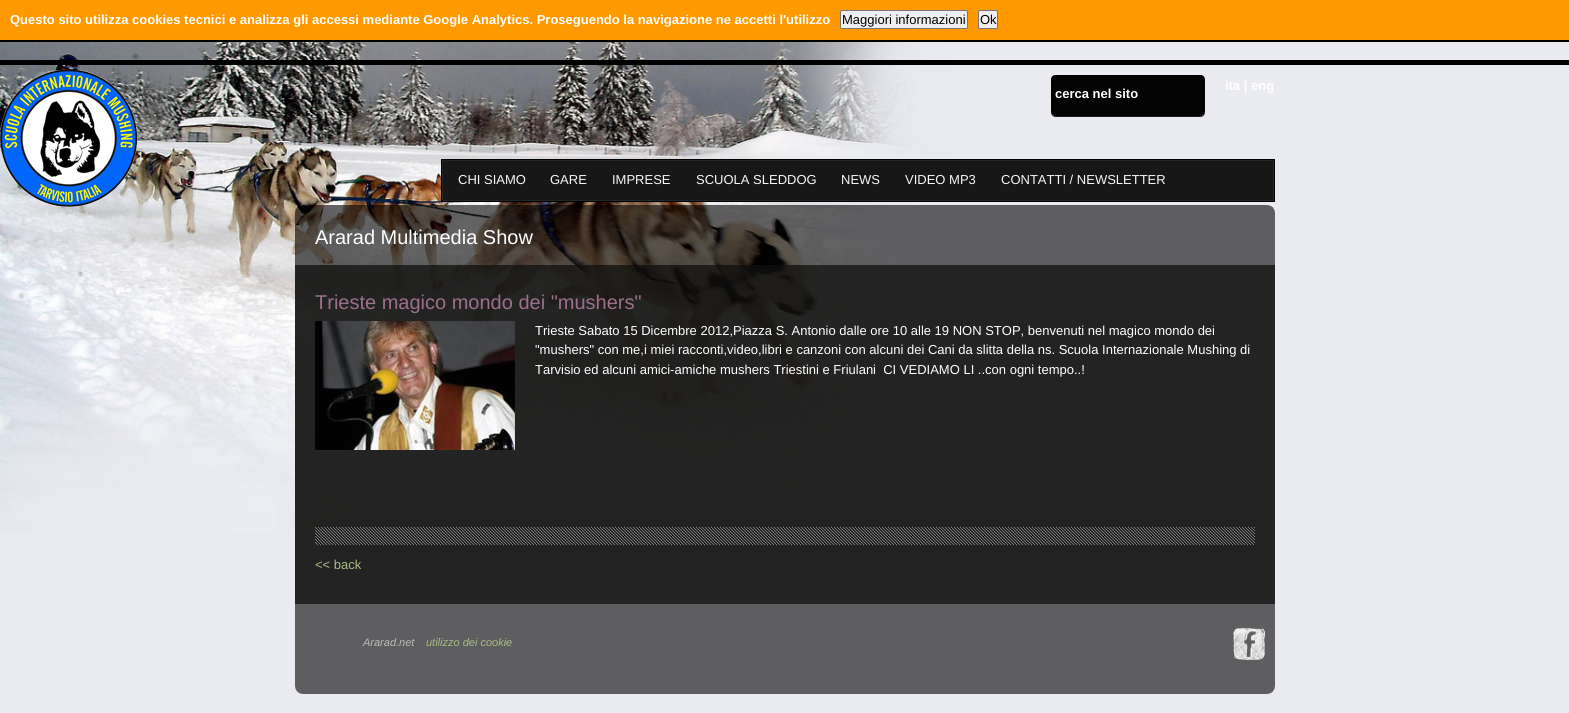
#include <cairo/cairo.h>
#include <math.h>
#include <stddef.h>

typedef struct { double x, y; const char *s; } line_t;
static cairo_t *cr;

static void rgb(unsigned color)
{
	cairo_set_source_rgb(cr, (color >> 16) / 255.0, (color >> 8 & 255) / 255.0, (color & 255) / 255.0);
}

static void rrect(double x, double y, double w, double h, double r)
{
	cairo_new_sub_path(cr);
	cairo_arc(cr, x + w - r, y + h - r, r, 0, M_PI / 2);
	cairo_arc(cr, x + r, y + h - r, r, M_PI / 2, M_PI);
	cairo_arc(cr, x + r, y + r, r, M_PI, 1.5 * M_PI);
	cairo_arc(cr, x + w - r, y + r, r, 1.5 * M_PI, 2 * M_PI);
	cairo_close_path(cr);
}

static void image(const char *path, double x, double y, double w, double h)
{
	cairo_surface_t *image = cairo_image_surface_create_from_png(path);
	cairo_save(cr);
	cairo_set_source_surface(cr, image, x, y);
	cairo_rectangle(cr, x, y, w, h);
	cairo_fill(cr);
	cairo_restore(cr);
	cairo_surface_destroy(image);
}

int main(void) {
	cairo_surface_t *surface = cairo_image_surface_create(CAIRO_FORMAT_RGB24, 1569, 713);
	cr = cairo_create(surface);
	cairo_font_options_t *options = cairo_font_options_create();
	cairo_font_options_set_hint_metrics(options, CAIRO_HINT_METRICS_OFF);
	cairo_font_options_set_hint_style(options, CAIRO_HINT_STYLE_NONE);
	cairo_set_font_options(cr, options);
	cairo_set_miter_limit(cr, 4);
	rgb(0xffffff);
	cairo_paint(cr);
	rgb(0xff9900);
	cairo_rectangle(cr, 0, 0, 1569, 40);
	cairo_fill(cr);
	rgb(0x000000);
	cairo_rectangle(cr, 0, 40, 1569, 2);
	cairo_fill(cr);
	rgb(0xefefef);
	rrect(840.5, 10.5, 127, 18, 1.5);
	cairo_fill_preserve(cr);
	rgb(0x767676);
	cairo_set_line_width(cr, 1);
	cairo_stroke(cr);
	rgb(0xefefef);
	rrect(978.5, 10.5, 19, 18, 1.5);
	cairo_fill_preserve(cr);
	rgb(0x767676);
	cairo_stroke(cr);
	image("img/1.png", 0, 42, 1569, 671);
	rgb(0x000000);
	cairo_rectangle(cr, 0, 60, 1569, 5);
	cairo_fill(cr);
	image("img/2.png", 0, 70, 137, 137);
	rgb(0x1d1d1d);
	cairo_new_path(cr);
	cairo_move_to(cr, 1051, 111);
	cairo_line_to(cr, 1051, 112);
	cairo_curve_to(cr, 1051, 115, 1053, 117, 1056, 117);
	cairo_line_to(cr, 1200, 117);
	cairo_curve_to(cr, 1203, 117, 1205, 115, 1205, 112);
	cairo_line_to(cr, 1205, 111);
	cairo_curve_to(cr, 1205, 114, 1203, 116, 1200, 116);
	cairo_line_to(cr, 1056, 116);
	cairo_curve_to(cr, 1053, 116, 1051, 114, 1051, 111);
	cairo_close_path(cr);
	cairo_fill(cr);
	rgb(0x030303);
	rrect(1051, 75, 154, 41, 5);
	cairo_fill(cr);
	cairo_set_fill_rule(cr, CAIRO_FILL_RULE_EVEN_ODD);
	cairo_new_path(cr);
	cairo_move_to(cr, 1056, 75);
	cairo_line_to(cr, 1200, 75);
	cairo_curve_to(cr, 1203, 75, 1205, 77, 1205, 80);
	cairo_line_to(cr, 1205, 111);
	cairo_curve_to(cr, 1205, 114, 1203, 116, 1200, 116);
	cairo_line_to(cr, 1056, 116);
	cairo_curve_to(cr, 1053, 116, 1051, 114, 1051, 111);
	cairo_line_to(cr, 1051, 80);
	cairo_curve_to(cr, 1051, 77, 1053, 75, 1056, 75);
	cairo_close_path(cr);
	cairo_move_to(cr, 1056, 76);
	cairo_line_to(cr, 1200, 76);
	cairo_curve_to(cr, 1203, 76, 1205, 78, 1205, 80);
	cairo_line_to(cr, 1205, 111);
	cairo_curve_to(cr, 1205, 113, 1203, 115, 1200, 115);
	cairo_line_to(cr, 1056, 115);
	cairo_curve_to(cr, 1054, 115, 1052, 113, 1052, 111);
	cairo_line_to(cr, 1052, 80);
	cairo_curve_to(cr, 1052, 78, 1054, 76, 1056, 76);
	cairo_close_path(cr);
	cairo_fill(cr);
	rgb(0x171717);
	cairo_rectangle(cr, 443, 161, 830, 39);
	cairo_fill(cr);
	cairo_rectangle(cr, 441.5, 159.5, 833, 42);
	rgb(0x000000);
	cairo_stroke(cr);
	cairo_rectangle(cr, 442.5, 160.5, 831, 40);
	rgb(0x252525);
	cairo_stroke(cr);
	image("img/3.png", 295, 205, 980, 60);
	cairo_set_source_rgba(cr, 0.055, 0.055, 0.051, 0.9);
	cairo_rectangle(cr, 295, 265, 980, 339);
	cairo_fill(cr);
	image("img/4.png", 315, 527, 940, 18);
	image("img/5.png", 315, 321, 200, 129);
	image("img/6.png", 295, 604, 980, 90);
	image("img/7.png", 1233, 628, 32, 32);
	cairo_select_font_face(cr, "Liberation Sans", CAIRO_FONT_SLANT_NORMAL, CAIRO_FONT_WEIGHT_BOLD);
	cairo_set_font_size(cr, 13);
	rgb(0xffffff);
	cairo_move_to(cr, 10, 24);
	cairo_show_text(cr, "Questo sito utilizza cookies tecnici e analizza gli accessi mediante Google Analytics. Proseguendo la navigazione ne accetti l'utilizzo");
	cairo_select_font_face(cr, "Liberation Sans", CAIRO_FONT_SLANT_NORMAL, CAIRO_FONT_WEIGHT_NORMAL);
	rgb(0x000000);
	cairo_move_to(cr, 842, 24);
	cairo_show_text(cr, "Maggiori informazioni");
	cairo_move_to(cr, 980, 24);
	cairo_show_text(cr, "Ok");
	cairo_select_font_face(cr, "Liberation Sans", CAIRO_FONT_SLANT_NORMAL, CAIRO_FONT_WEIGHT_BOLD);
	rgb(0xffffff);
	cairo_move_to(cr, 1055, 98);
	cairo_show_text(cr, "cerca nel sito");
	cairo_move_to(cr, 1225, 90);
	cairo_show_text(cr, "ita | eng");
	cairo_select_font_face(cr, "Liberation Sans", CAIRO_FONT_SLANT_NORMAL, CAIRO_FONT_WEIGHT_NORMAL);
	rgb(0xf7f7f7);
	{
		static const line_t items[] = {
			{458, 184, "CHI SIAMO"},
			{550, 184, "GARE"},
			{612, 184, "IMPRESE"},
			{696, 184, "SCUOLA SLEDDOG"},
			{841, 184, "NEWS"},
			{905, 184, "VIDEO MP3"},
			{1001, 184, "CONTATTI / NEWSLETTER"},
		};
		for (size_t i = 0; i < sizeof items / sizeof *items; i++) {
			cairo_move_to(cr, items[i].x, items[i].y);
			cairo_show_text(cr, items[i].s);
		}
	}
	cairo_set_font_size(cr, 20);
	rgb(0xffffff);
	cairo_move_to(cr, 315, 244);
	cairo_show_text(cr, "Ararad Multimedia Show");
	rgb(0x9c6f8b);
	cairo_move_to(cr, 315, 309);
	cairo_show_text(cr, "Trieste magico mondo dei \"mushers\"");
	cairo_set_font_size(cr, 13);
	rgb(0xffffff);
	{
		static const line_t items[] = {
			{535, 335, "Trieste Sabato 15 Dicembre 2012,Piazza S. Antonio dalle ore 10 alle 19 NON STOP, benvenuti nel magico mondo dei"},
			{535, 354, "\"mushers\" con me,i miei racconti,video,libri e canzoni con alcuni dei Cani da slitta della ns. Scuola Internazionale Mushing di"},
			{535, 374, "Tarvisio ed alcuni amici-amiche mushers Triestini e Friulani  CI VEDIAMO LI ..con ogni tempo..!"},
		};
		for (size_t i = 0; i < sizeof items / sizeof *items; i++) {
			cairo_move_to(cr, items[i].x, items[i].y);
			cairo_show_text(cr, items[i].s);
		}
	}
	rgb(0xacbc86);
	cairo_move_to(cr, 315, 569);
	cairo_show_text(cr, "<< back");
	cairo_select_font_face(cr, "Liberation Sans", CAIRO_FONT_SLANT_ITALIC, CAIRO_FONT_WEIGHT_NORMAL);
	cairo_set_font_size(cr, 11);
	rgb(0xbbbbbb);
	cairo_move_to(cr, 363, 646);
	cairo_show_text(cr, "Ararad.net");
	rgb(0xacbc86);
	cairo_move_to(cr, 426, 646);
	cairo_show_text(cr, "utilizzo dei cookie");
	cairo_surface_write_to_png(surface, "page.png");
	cairo_font_options_destroy(options);
	cairo_destroy(cr);
	cairo_surface_destroy(surface);
	return 0;
}
